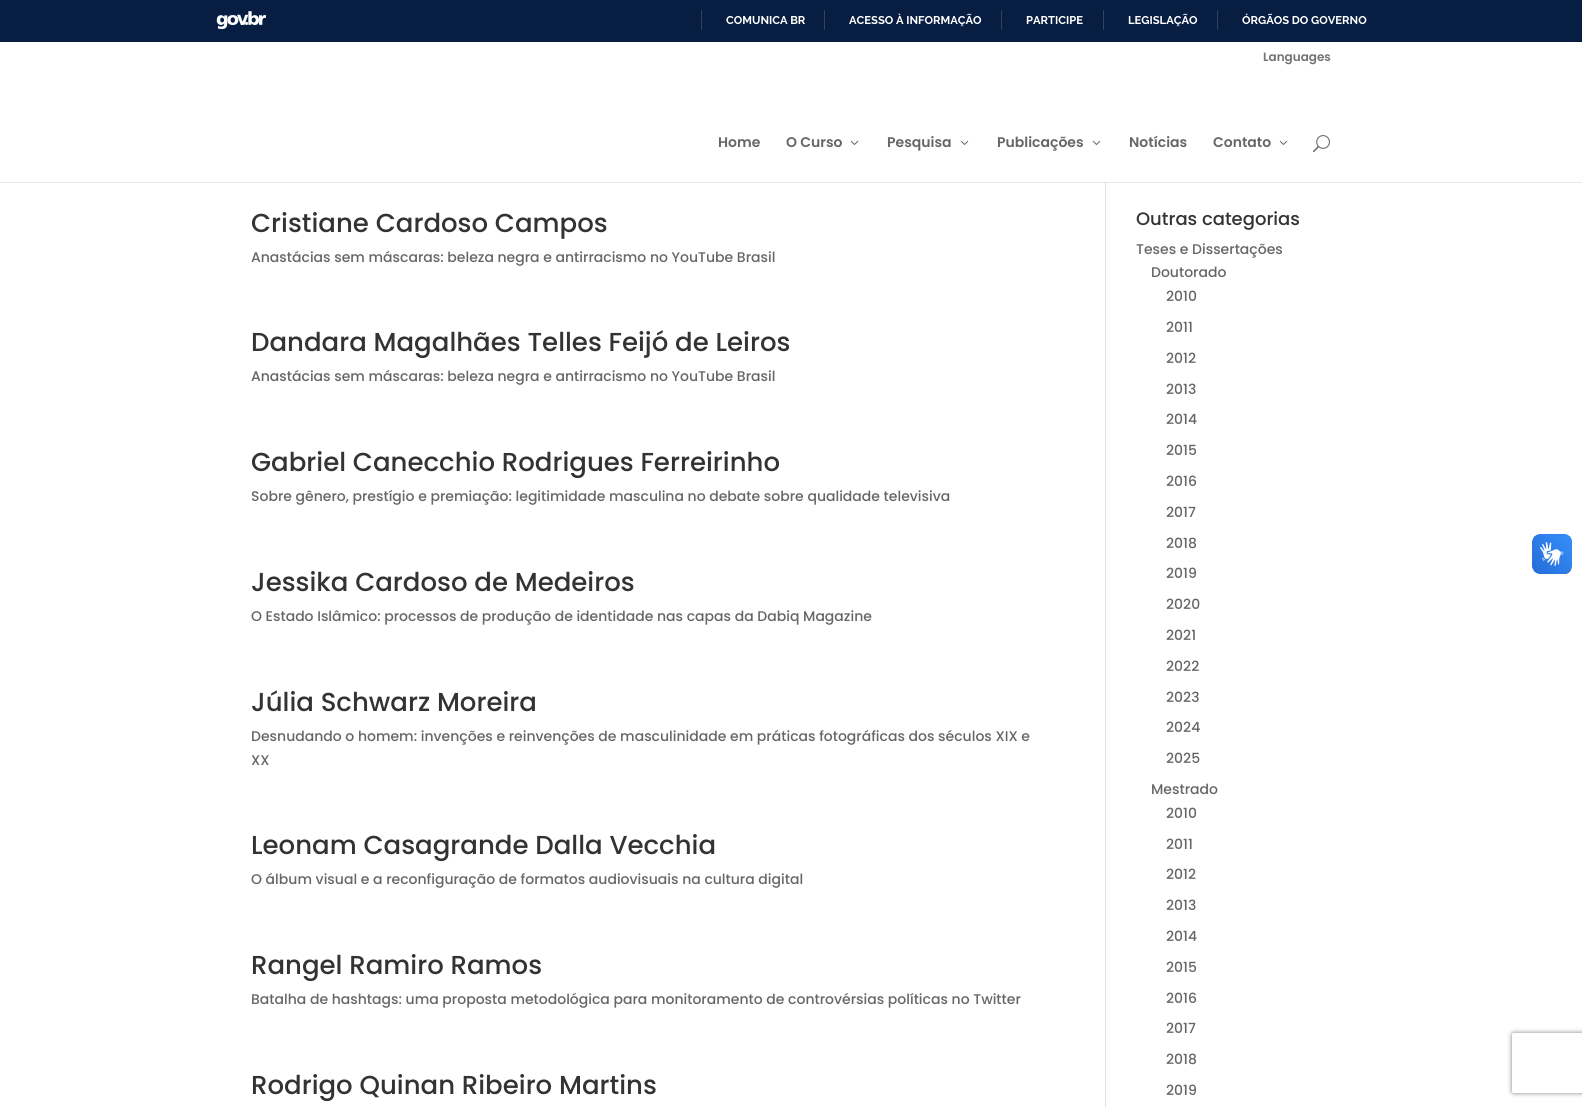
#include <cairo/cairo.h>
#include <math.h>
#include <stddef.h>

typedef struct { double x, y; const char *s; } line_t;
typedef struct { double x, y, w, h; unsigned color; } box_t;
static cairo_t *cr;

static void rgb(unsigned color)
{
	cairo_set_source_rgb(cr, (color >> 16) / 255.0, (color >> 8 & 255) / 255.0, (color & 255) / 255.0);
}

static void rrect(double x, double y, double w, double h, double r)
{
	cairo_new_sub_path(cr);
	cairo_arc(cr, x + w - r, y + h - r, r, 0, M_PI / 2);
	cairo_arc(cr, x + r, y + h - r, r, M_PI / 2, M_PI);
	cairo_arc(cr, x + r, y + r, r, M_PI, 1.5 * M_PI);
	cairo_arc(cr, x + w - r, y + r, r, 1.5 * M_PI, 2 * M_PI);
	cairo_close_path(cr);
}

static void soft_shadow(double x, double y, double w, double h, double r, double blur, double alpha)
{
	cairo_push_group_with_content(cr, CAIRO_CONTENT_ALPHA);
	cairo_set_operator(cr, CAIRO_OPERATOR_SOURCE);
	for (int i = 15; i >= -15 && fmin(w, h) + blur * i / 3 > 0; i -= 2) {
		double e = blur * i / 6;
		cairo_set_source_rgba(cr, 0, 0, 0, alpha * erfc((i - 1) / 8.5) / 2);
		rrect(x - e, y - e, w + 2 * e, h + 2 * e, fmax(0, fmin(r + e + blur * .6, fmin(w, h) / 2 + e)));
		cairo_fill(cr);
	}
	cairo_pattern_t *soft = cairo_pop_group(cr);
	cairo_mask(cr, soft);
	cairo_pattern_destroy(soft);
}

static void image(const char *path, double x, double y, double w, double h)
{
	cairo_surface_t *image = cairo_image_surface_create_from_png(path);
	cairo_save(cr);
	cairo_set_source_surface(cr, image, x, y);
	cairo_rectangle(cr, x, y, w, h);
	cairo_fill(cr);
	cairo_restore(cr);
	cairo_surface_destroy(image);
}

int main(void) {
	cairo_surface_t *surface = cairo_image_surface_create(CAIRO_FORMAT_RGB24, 1582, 1107);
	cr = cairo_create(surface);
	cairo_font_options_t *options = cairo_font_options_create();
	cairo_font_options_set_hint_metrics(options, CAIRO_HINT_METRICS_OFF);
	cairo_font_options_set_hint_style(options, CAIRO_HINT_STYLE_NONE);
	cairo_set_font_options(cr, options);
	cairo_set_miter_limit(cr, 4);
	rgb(0xffffff);
	cairo_paint(cr);
	rgb(0xe6e6e6);
	cairo_rectangle(cr, 0, 182, 1582, 1);
	cairo_fill(cr);
	rgb(0x071d41);
	cairo_rectangle(cr, 0, 0, 1582, 42);
	cairo_fill(cr);
	image("img/1.png", 216, 11, 50, 18);
	{
		static const box_t items[] = {
			{701, 10, 1, 20, 0x32425b},
			{824, 10, 1, 20, 0x32425b},
			{1001, 10, 1, 20, 0x32425b},
			{1103, 10, 1, 20, 0x32425b},
			{1217, 10, 1, 20, 0x32425b},
		};
		for (size_t i = 0; i < sizeof items / sizeof *items; i++) {
			rgb(items[i].color);
			cairo_rectangle(cr, items[i].x, items[i].y, items[i].w, items[i].h);
			cairo_fill(cr);
		}
	}
	image("img/2.png", 850, 140, 9, 5);
	image("img/2.png", 960, 140, 9, 5);
	image("img/2.png", 1092, 140, 9, 5);
	image("img/2.png", 1279, 140, 9, 5);
	image("img/3.png", 1313, 135, 17, 18);
	rgb(0xe2e2e2);
	cairo_rectangle(cr, 1105, 183, 1, 924);
	cairo_fill(cr);
	rgb(0xcbcbcb);
	cairo_rectangle(cr, 1105, 182, 1, 1);
	cairo_fill(cr);
	image("img/4.png", 1532, 534, 40, 40);
	image("img/5.png", 1532, 534, 40, 40);
	cairo_save(cr);
	cairo_set_fill_rule(cr, CAIRO_FILL_RULE_EVEN_ODD);
	cairo_new_path(cr);
	cairo_move_to(cr, 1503, 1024);
	cairo_line_to(cr, 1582, 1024);
	cairo_line_to(cr, 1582, 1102);
	cairo_line_to(cr, 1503, 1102);
	cairo_close_path(cr);
	cairo_move_to(cr, 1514, 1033);
	cairo_line_to(cr, 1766, 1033);
	cairo_curve_to(cr, 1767, 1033, 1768, 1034, 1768, 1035);
	cairo_line_to(cr, 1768, 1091);
	cairo_curve_to(cr, 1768, 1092, 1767, 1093, 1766, 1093);
	cairo_line_to(cr, 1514, 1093);
	cairo_curve_to(cr, 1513, 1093, 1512, 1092, 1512, 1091);
	cairo_line_to(cr, 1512, 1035);
	cairo_curve_to(cr, 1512, 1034, 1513, 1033, 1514, 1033);
	cairo_close_path(cr);
	cairo_clip(cr);
	rgb(0x808080);
	soft_shadow(1512, 1033, 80, 60, 2, 2.5, 1);
	cairo_restore(cr);
	cairo_select_font_face(cr, "Raleway", CAIRO_FONT_SLANT_NORMAL, CAIRO_FONT_WEIGHT_BOLD);
	cairo_set_font_size(cr, 11.25);
	rgb(0xffffff);
	{
		static const line_t items[] = {
			{726, 24, "COMUNICA BR"},
			{849, 24, "ACESSO À INFORMAÇÃO"},
			{1026, 24, "PARTICIPE"},
			{1128, 24, "LEGISLAÇÃO"},
			{1242, 24, "ÓRGÃOS DO GOVERNO"},
		};
		for (size_t i = 0; i < sizeof items / sizeof *items; i++) {
			cairo_move_to(cr, items[i].x, items[i].y);
			cairo_show_text(cr, items[i].s);
		}
	}
	cairo_select_font_face(cr, "Poppins SemiBold", CAIRO_FONT_SLANT_NORMAL, CAIRO_FONT_WEIGHT_NORMAL);
	cairo_set_font_size(cr, 12);
	rgb(0x727272);
	cairo_move_to(cr, 1263, 61);
	cairo_show_text(cr, "Languages");
	cairo_set_font_size(cr, 14);
	rgb(0x666666);
	{
		static const line_t items[] = {
			{718, 147, "Home"},
			{786, 147, "O Curso"},
			{887, 147, "Pesquisa"},
			{997, 147, "Publicações"},
			{1129, 147, "Notícias"},
			{1213, 147, "Contato"},
		};
		for (size_t i = 0; i < sizeof items / sizeof *items; i++) {
			cairo_move_to(cr, items[i].x, items[i].y);
			cairo_show_text(cr, items[i].s);
		}
	}
	cairo_select_font_face(cr, "Poppins Medium", CAIRO_FONT_SLANT_NORMAL, CAIRO_FONT_WEIGHT_NORMAL);
	cairo_set_font_size(cr, 26);
	rgb(0x333333);
	cairo_move_to(cr, 251, 232);
	cairo_show_text(cr, "Cristiane Cardoso Campos");
	cairo_set_font_size(cr, 14);
	rgb(0x666666);
	cairo_move_to(cr, 251, 262);
	cairo_show_text(cr, "Anastácias sem máscaras: beleza negra e antirracismo no YouTube Brasil");
	cairo_set_font_size(cr, 26);
	rgb(0x333333);
	cairo_move_to(cr, 251, 351);
	cairo_show_text(cr, "Dandara Magalhães Telles Feijó de Leiros");
	cairo_set_font_size(cr, 14);
	rgb(0x666666);
	cairo_move_to(cr, 251, 381);
	cairo_show_text(cr, "Anastácias sem máscaras: beleza negra e antirracismo no YouTube Brasil");
	cairo_set_font_size(cr, 26);
	rgb(0x333333);
	cairo_move_to(cr, 251, 471);
	cairo_show_text(cr, "Gabriel Canecchio Rodrigues Ferreirinho");
	cairo_set_font_size(cr, 14);
	rgb(0x666666);
	cairo_move_to(cr, 251, 501);
	cairo_show_text(cr, "Sobre gênero, prestígio e premiação: legitimidade masculina no debate sobre qualidade televisiva");
	cairo_set_font_size(cr, 26);
	rgb(0x333333);
	cairo_move_to(cr, 251, 591);
	cairo_show_text(cr, "Jessika Cardoso de Medeiros");
	cairo_set_font_size(cr, 14);
	rgb(0x666666);
	cairo_move_to(cr, 251, 621);
	cairo_show_text(cr, "O Estado Islâmico: processos de produção de identidade nas capas da Dabiq Magazine");
	cairo_set_font_size(cr, 26);
	rgb(0x333333);
	cairo_move_to(cr, 251, 711);
	cairo_show_text(cr, "Júlia Schwarz Moreira");
	cairo_set_font_size(cr, 14);
	rgb(0x666666);
	cairo_move_to(cr, 251, 741);
	cairo_show_text(cr, "Desnudando o homem: invenções e reinvenções de masculinidade em práticas fotográficas dos séculos XIX e");
	cairo_move_to(cr, 251, 765);
	cairo_show_text(cr, "XX");
	cairo_set_font_size(cr, 26);
	rgb(0x333333);
	cairo_move_to(cr, 251, 854);
	cairo_show_text(cr, "Leonam Casagrande Dalla Vecchia");
	cairo_set_font_size(cr, 14);
	rgb(0x666666);
	cairo_move_to(cr, 251, 884);
	cairo_show_text(cr, "O álbum visual e a reconfiguração de formatos audiovisuais na cultura digital");
	cairo_set_font_size(cr, 26);
	rgb(0x333333);
	cairo_move_to(cr, 251, 974);
	cairo_show_text(cr, "Rangel Ramiro Ramos");
	cairo_set_font_size(cr, 14);
	rgb(0x666666);
	cairo_move_to(cr, 251, 1004);
	cairo_show_text(cr, "Batalha de hashtags: uma proposta metodológica para monitoramento de controvérsias políticas no Twitter");
	cairo_set_font_size(cr, 26);
	rgb(0x333333);
	cairo_move_to(cr, 251, 1094);
	cairo_show_text(cr, "Rodrigo Quinan Ribeiro Martins");
	cairo_set_font_size(cr, 18);
	cairo_move_to(cr, 1136, 225);
	cairo_show_text(cr, "Outras categorias");
	cairo_set_font_size(cr, 14);
	rgb(0x666666);
	{
		static const line_t items[] = {
			{1136, 254, "Teses e Dissertações"},
			{1151, 277, "Doutorado"},
			{1166, 301, "2010"},
			{1166, 332, "2011"},
			{1166, 363, "2012"},
			{1166, 394, "2013"},
			{1166, 424, "2014"},
			{1166, 455, "2015"},
			{1166, 486, "2016"},
			{1166, 517, "2017"},
			{1166, 548, "2018"},
			{1166, 578, "2019"},
			{1166, 609, "2020"},
			{1166, 640, "2021"},
			{1166, 671, "2022"},
			{1166, 702, "2023"},
			{1166, 732, "2024"},
			{1166, 763, "2025"},
			{1151, 794, "Mestrado"},
			{1166, 818, "2010"},
			{1166, 849, "2011"},
			{1166, 879, "2012"},
			{1166, 910, "2013"},
			{1166, 941, "2014"},
			{1166, 972, "2015"},
			{1166, 1003, "2016"},
			{1166, 1033, "2017"},
			{1166, 1064, "2018"},
			{1166, 1095, "2019"},
		};
		for (size_t i = 0; i < sizeof items / sizeof *items; i++) {
			cairo_move_to(cr, items[i].x, items[i].y);
			cairo_show_text(cr, items[i].s);
		}
	}
	cairo_surface_write_to_png(surface, "page.png");
	cairo_font_options_destroy(options);
	cairo_destroy(cr);
	cairo_surface_destroy(surface);
	return 0;
}
